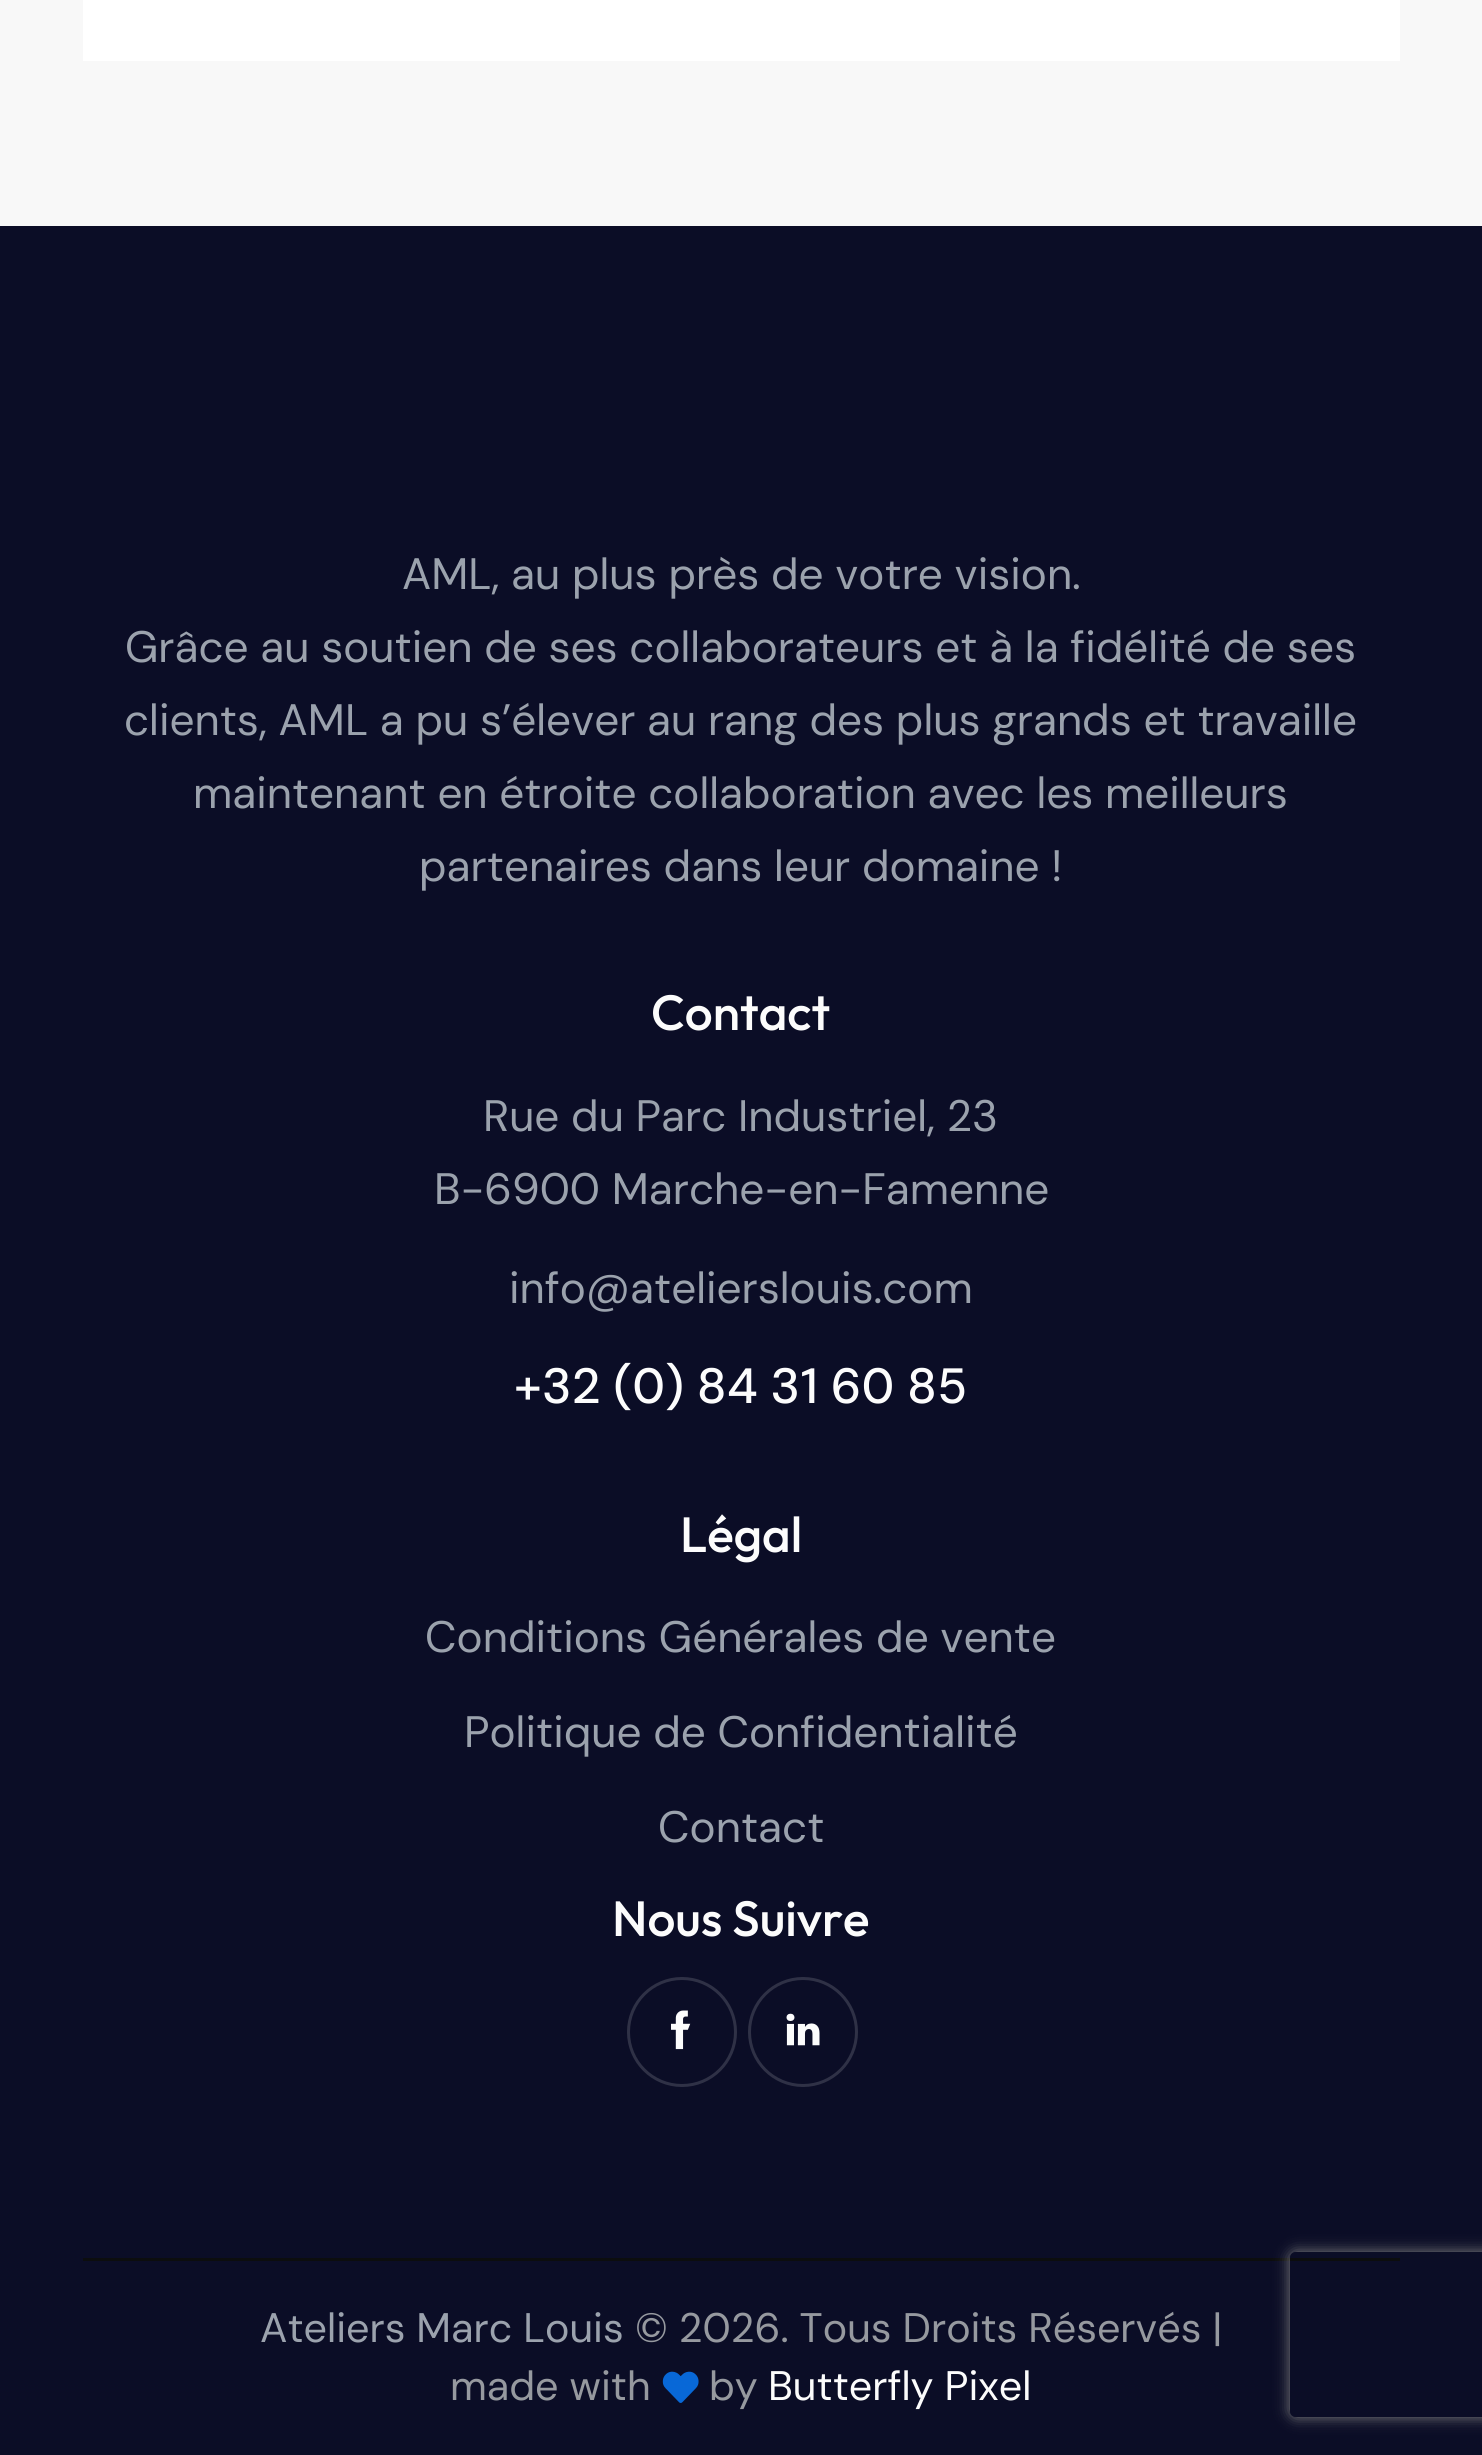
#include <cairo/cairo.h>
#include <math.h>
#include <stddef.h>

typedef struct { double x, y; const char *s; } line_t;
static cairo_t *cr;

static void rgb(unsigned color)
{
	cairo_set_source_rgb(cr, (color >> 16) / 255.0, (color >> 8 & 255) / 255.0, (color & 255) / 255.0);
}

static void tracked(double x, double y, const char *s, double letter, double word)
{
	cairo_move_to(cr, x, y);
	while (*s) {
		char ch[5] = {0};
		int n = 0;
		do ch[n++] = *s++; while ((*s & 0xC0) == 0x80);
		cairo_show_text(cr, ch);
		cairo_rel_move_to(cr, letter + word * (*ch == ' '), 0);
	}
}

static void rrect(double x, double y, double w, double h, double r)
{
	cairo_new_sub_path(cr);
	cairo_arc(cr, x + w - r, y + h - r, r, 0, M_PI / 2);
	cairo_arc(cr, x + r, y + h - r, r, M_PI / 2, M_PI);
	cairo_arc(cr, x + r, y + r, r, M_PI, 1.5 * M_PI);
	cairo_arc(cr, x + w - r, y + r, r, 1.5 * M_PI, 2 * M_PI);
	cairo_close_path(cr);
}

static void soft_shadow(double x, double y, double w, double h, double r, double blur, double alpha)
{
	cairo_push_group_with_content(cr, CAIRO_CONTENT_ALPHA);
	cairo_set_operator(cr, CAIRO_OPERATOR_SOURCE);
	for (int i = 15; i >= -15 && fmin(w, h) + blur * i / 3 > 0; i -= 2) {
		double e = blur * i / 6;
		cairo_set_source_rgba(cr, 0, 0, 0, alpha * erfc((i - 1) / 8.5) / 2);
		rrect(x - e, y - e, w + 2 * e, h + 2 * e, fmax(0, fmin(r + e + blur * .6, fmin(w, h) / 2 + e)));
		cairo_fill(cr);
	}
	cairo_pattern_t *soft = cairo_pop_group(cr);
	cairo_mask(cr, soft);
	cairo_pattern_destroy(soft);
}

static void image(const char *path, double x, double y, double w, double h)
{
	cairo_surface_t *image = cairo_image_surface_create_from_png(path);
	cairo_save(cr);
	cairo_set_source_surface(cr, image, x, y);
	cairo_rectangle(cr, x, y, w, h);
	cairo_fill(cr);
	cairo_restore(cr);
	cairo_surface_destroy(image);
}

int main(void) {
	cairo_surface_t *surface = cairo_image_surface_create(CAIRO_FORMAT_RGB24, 1482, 2455);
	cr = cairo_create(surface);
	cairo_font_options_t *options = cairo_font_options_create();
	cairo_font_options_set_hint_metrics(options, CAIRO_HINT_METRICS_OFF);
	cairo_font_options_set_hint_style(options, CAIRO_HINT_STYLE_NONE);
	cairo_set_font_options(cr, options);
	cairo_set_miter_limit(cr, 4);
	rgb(0xf8f8f8);
	cairo_paint(cr);
	rgb(0xffffff);
	cairo_rectangle(cr, 83, 0, 1317, 61);
	cairo_fill(cr);
	rgb(0x0b0d26);
	cairo_rectangle(cr, 0, 226, 1482, 2229);
	cairo_fill(cr);
	cairo_arc(cr, 682, 2032, 53.5, 0, 2 * M_PI);
	rgb(0x2f3146);
	cairo_set_line_width(cr, 3);
	cairo_stroke(cr);
	image("img/1.png", 671, 2010, 20, 40);
	cairo_arc(cr, 803, 2032, 53.5, 0, 2 * M_PI);
	cairo_stroke(cr);
	image("img/2.png", 786, 2013, 34, 33);
	rgb(0x0c0d0e);
	cairo_rectangle(cr, 83, 2258, 1317, 3);
	cairo_fill(cr);
	image("img/3.png", 662, 2371, 37, 32);
	cairo_save(cr);
	cairo_set_fill_rule(cr, CAIRO_FILL_RULE_EVEN_ODD);
	cairo_new_path(cr);
	cairo_move_to(cr, 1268, 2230);
	cairo_line_to(cr, 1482, 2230);
	cairo_line_to(cr, 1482, 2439);
	cairo_line_to(cr, 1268, 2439);
	cairo_close_path(cr);
	cairo_move_to(cr, 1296, 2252);
	cairo_line_to(cr, 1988, 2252);
	cairo_curve_to(cr, 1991.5, 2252, 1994, 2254.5, 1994, 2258);
	cairo_line_to(cr, 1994, 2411);
	cairo_curve_to(cr, 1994, 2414.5, 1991.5, 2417, 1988, 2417);
	cairo_line_to(cr, 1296, 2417);
	cairo_curve_to(cr, 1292.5, 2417, 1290, 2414.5, 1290, 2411);
	cairo_line_to(cr, 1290, 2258);
	cairo_curve_to(cr, 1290, 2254.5, 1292.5, 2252, 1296, 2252);
	cairo_close_path(cr);
	cairo_clip(cr);
	rgb(0x808080);
	soft_shadow(1290, 2252, 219, 165, 6, 7, 1);
	cairo_restore(cr);
	cairo_select_font_face(cr, "DM Sans", CAIRO_FONT_SLANT_NORMAL, CAIRO_FONT_WEIGHT_NORMAL);
	cairo_set_font_size(cr, 44);
	rgb(0x9ba2ad);
	{
		static const line_t items[] = {
			{402, 589, "AML, au plus près de votre vision."},
			{125, 662, "Grâce au soutien de ses collaborateurs et à la fidélité de ses"},
			{124, 735, "clients, AML a pu s’élever au rang des plus grands et travaille"},
			{193, 808, "maintenant en étroite collaboration avec les meilleurs"},
			{419, 881, "partenaires dans leur domaine !"},
		};
		for (size_t i = 0; i < sizeof items / sizeof *items; i++) {
			cairo_move_to(cr, items[i].x, items[i].y);
			cairo_show_text(cr, items[i].s);
		}
	}
	cairo_select_font_face(cr, "Outfit Medium", CAIRO_FONT_SLANT_NORMAL, CAIRO_FONT_WEIGHT_NORMAL);
	cairo_set_font_size(cr, 49.5);
	rgb(0xfcfcfc);
	cairo_move_to(cr, 651, 1030);
	cairo_show_text(cr, "Contact");
	cairo_select_font_face(cr, "DM Sans", CAIRO_FONT_SLANT_NORMAL, CAIRO_FONT_WEIGHT_NORMAL);
	cairo_set_font_size(cr, 44);
	rgb(0x9ba2ad);
	{
		static const line_t items[] = {
			{483, 1131, "Rue du Parc Industriel, 23"},
			{434, 1204, "B-6900 Marche-en-Famenne"},
			{509, 1303, "info@atelierslouis.com"},
		};
		for (size_t i = 0; i < sizeof items / sizeof *items; i++) {
			cairo_move_to(cr, items[i].x, items[i].y);
			cairo_show_text(cr, items[i].s);
		}
	}
	cairo_select_font_face(cr, "DM Sans Medium", CAIRO_FONT_SLANT_NORMAL, CAIRO_FONT_WEIGHT_NORMAL);
	cairo_set_font_size(cr, 49.5);
	rgb(0xfcfcfc);
	tracked(514, 1403, "+32 (0) 84 31 60 85", 0, -0.5);
	cairo_select_font_face(cr, "Outfit Medium", CAIRO_FONT_SLANT_NORMAL, CAIRO_FONT_WEIGHT_NORMAL);
	cairo_move_to(cr, 680, 1552);
	cairo_show_text(cr, "Légal");
	cairo_select_font_face(cr, "DM Sans", CAIRO_FONT_SLANT_NORMAL, CAIRO_FONT_WEIGHT_NORMAL);
	cairo_set_font_size(cr, 44);
	rgb(0x9ba2ad);
	{
		static const line_t items[] = {
			{425, 1652, "Conditions Générales de vente"},
			{464, 1747, "Politique de Confidentialité"},
			{658, 1842, "Contact"},
		};
		for (size_t i = 0; i < sizeof items / sizeof *items; i++) {
			cairo_move_to(cr, items[i].x, items[i].y);
			cairo_show_text(cr, items[i].s);
		}
	}
	cairo_select_font_face(cr, "Outfit Medium", CAIRO_FONT_SLANT_NORMAL, CAIRO_FONT_WEIGHT_NORMAL);
	cairo_set_font_size(cr, 49.5);
	rgb(0xfcfcfc);
	cairo_move_to(cr, 612, 1936);
	cairo_show_text(cr, "Nous Suivre");
	cairo_select_font_face(cr, "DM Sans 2", CAIRO_FONT_SLANT_NORMAL, CAIRO_FONT_WEIGHT_NORMAL);
	cairo_set_font_size(cr, 41.25);
	rgb(0x9ba2ad);
	cairo_move_to(cr, 260, 2342);
	cairo_show_text(cr, "Ateliers Marc Louis");
	rgb(0x96999f);
	{
		static const line_t items[] = {
			{635, 2342, "© 2026. Tous Droits Réservés |"},
			{450, 2400, "made with"},
			{709, 2400, "by"},
		};
		for (size_t i = 0; i < sizeof items / sizeof *items; i++) {
			cairo_move_to(cr, items[i].x, items[i].y);
			cairo_show_text(cr, items[i].s);
		}
	}
	rgb(0xfcfcfc);
	cairo_move_to(cr, 768, 2400);
	cairo_show_text(cr, "Butterfly Pixel");
	cairo_surface_write_to_png(surface, "page.png");
	cairo_font_options_destroy(options);
	cairo_destroy(cr);
	cairo_surface_destroy(surface);
	return 0;
}
